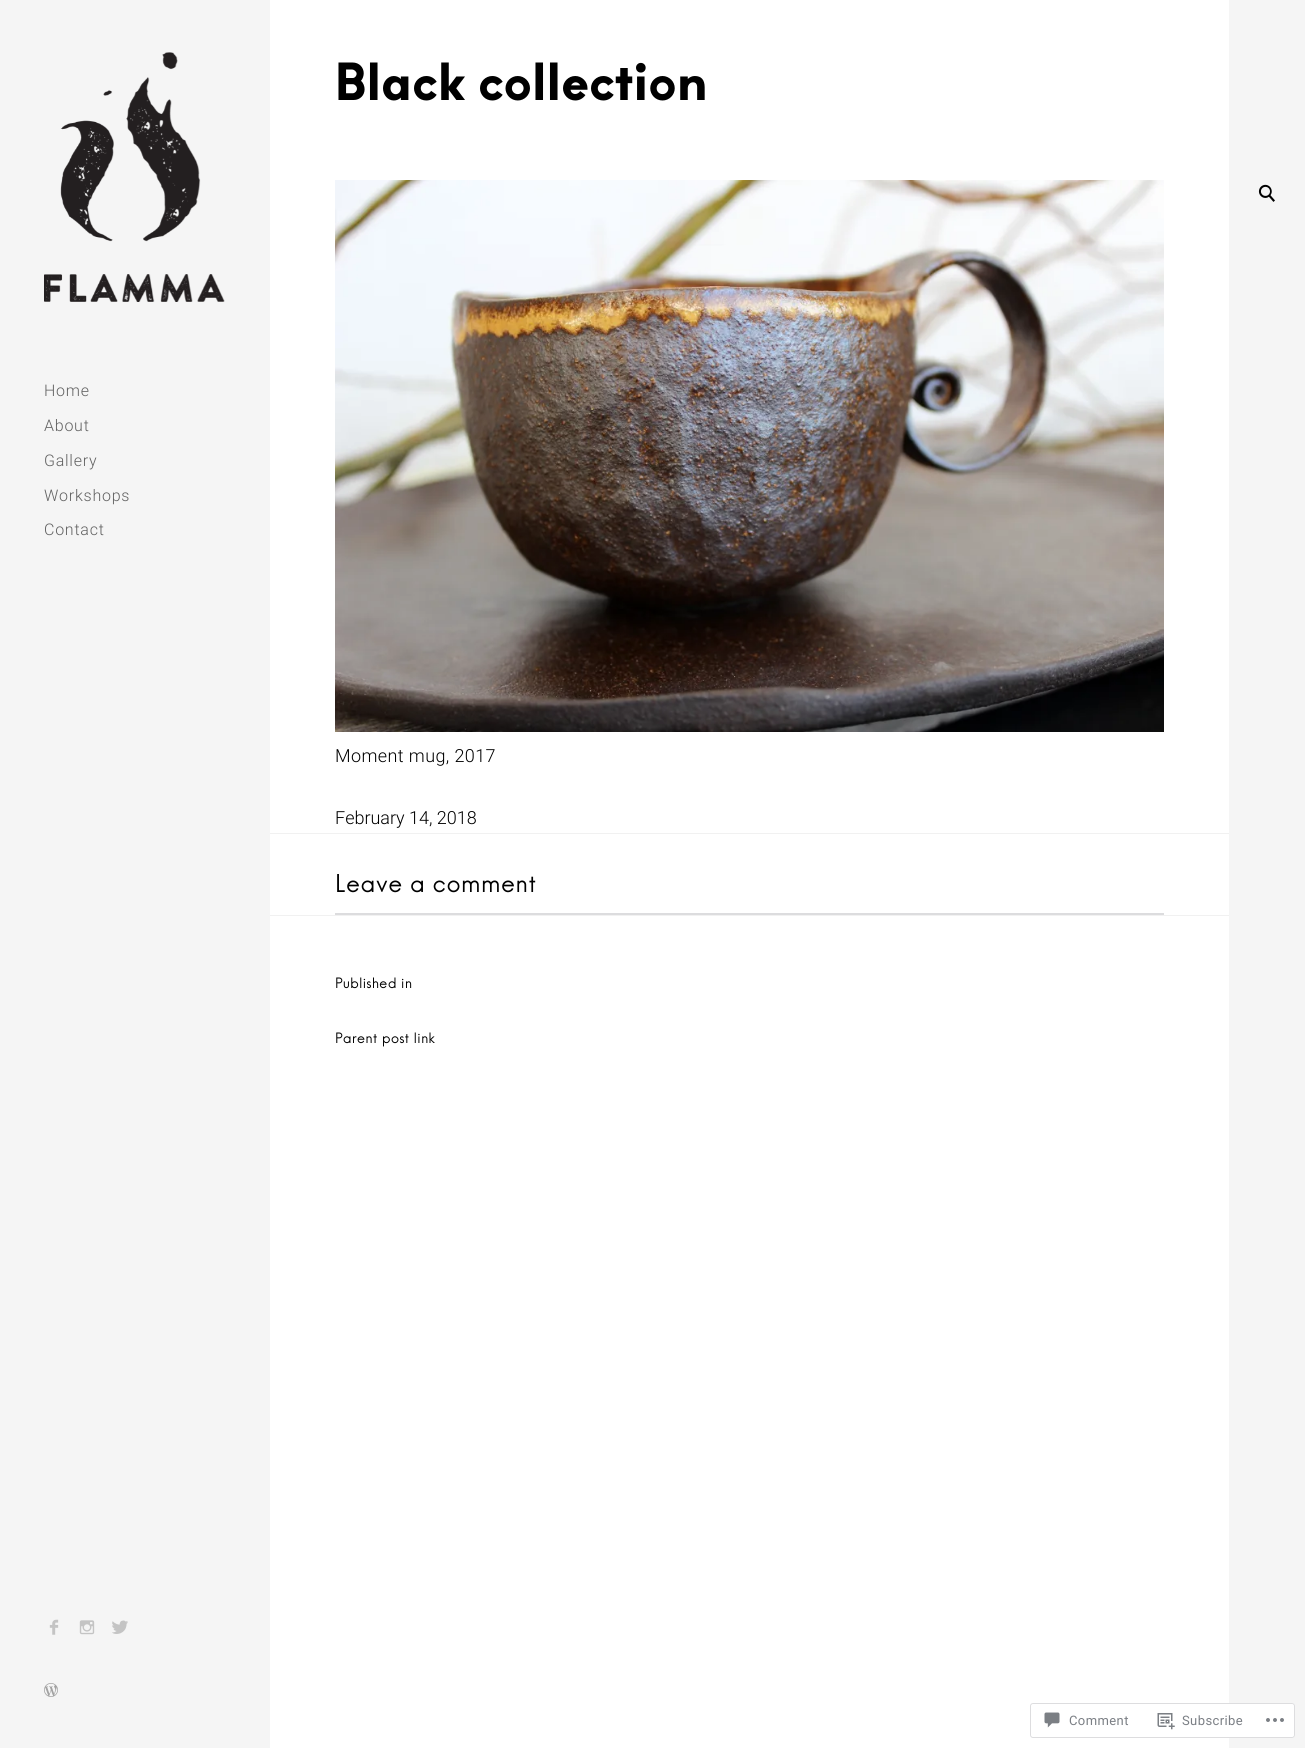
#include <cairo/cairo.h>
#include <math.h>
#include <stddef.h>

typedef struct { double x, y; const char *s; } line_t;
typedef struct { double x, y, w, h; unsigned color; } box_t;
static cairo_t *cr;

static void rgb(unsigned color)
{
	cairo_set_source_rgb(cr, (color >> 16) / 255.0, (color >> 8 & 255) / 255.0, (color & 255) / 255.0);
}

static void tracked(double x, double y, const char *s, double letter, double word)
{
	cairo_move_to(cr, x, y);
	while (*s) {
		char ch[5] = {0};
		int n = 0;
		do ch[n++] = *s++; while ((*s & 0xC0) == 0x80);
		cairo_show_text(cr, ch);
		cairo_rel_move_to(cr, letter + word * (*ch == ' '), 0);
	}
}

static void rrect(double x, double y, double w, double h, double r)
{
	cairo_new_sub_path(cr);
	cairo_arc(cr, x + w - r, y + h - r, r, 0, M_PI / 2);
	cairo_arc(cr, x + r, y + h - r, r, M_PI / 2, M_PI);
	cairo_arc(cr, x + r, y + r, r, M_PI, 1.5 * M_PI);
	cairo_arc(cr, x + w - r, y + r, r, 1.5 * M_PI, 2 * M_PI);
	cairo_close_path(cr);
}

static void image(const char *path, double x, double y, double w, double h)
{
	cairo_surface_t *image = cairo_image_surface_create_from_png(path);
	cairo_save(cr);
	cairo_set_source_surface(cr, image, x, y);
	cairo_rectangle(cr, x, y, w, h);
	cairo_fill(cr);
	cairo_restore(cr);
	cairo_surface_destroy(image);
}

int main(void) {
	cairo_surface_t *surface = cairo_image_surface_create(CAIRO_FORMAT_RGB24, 1305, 1748);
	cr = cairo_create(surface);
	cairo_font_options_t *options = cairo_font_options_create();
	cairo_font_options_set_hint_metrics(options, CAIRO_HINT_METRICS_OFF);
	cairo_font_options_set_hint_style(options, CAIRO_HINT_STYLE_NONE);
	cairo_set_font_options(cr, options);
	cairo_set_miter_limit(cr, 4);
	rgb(0xf5f5f5);
	cairo_paint(cr);
	rgb(0xffffff);
	cairo_rectangle(cr, 270, 0, 959, 1748);
	cairo_fill(cr);
	image("img/1.png", 335, 180, 829, 552);
	{
		static const box_t items[] = {
			{270, 833, 959, 1, 0xf1f1f1},
			{335, 913, 829, 2, 0xdcdcde},
			{270, 915, 959, 1, 0xf1f1f1},
		};
		for (size_t i = 0; i < sizeof items / sizeof *items; i++) {
			rgb(items[i].color);
			cairo_rectangle(cr, items[i].x, items[i].y, items[i].w, items[i].h);
			cairo_fill(cr);
		}
	}
	image("img/2.png", 1258, 184, 17, 18);
	image("img/3.png", 44, 52, 181, 250);
	image("img/4.png", 49, 1619, 10, 16);
	image("img/5.png", 79, 1620, 16, 15);
	image("img/6.png", 112, 1620, 16, 14);
	image("img/7.png", 44, 1683, 14, 14);
	cairo_set_source_rgba(cr, 1, 1, 1, 0.98);
	rrect(1030, 1703, 265, 35, 3);
	cairo_fill(cr);
	rrect(1030.5, 1703.5, 264, 34, 2.5);
	cairo_set_source_rgba(cr, 0.863, 0.863, 0.871, 0.98);
	cairo_set_line_width(cr, 1);
	cairo_stroke(cr);
	image("img/8.png", 1044, 1712, 16, 16);
	image("img/9.png", 1157, 1713, 18, 17);
	image("img/10.png", 1266, 1718, 18, 4);
	cairo_select_font_face(cr, "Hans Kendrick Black", CAIRO_FONT_SLANT_NORMAL, CAIRO_FONT_WEIGHT_NORMAL);
	cairo_set_font_size(cr, 50);
	rgb(0x000000);
	cairo_move_to(cr, 335, 100);
	cairo_show_text(cr, "Black collection");
	cairo_select_font_face(cr, "Roboto Light", CAIRO_FONT_SLANT_NORMAL, CAIRO_FONT_WEIGHT_NORMAL);
	cairo_set_font_size(cr, 18);
	tracked(335, 762, "Moment mug, 2017", 0.4, 0);
	cairo_move_to(cr, 335, 824);
	cairo_show_text(cr, "February 14, 2018");
	cairo_select_font_face(cr, "Hans Kendrick", CAIRO_FONT_SLANT_NORMAL, CAIRO_FONT_WEIGHT_NORMAL);
	cairo_set_font_size(cr, 24);
	cairo_move_to(cr, 335, 892);
	cairo_show_text(cr, "Leave a comment");
	cairo_set_font_size(cr, 14);
	cairo_move_to(cr, 335, 988);
	cairo_show_text(cr, "Published in");
	cairo_move_to(cr, 335, 1043);
	cairo_show_text(cr, "Parent post link");
	cairo_select_font_face(cr, "Roboto Light", CAIRO_FONT_SLANT_NORMAL, CAIRO_FONT_WEIGHT_NORMAL);
	cairo_set_font_size(cr, 16);
	rgb(0x626262);
	{
		static const line_t items[] = {
			{44, 396, "Home"},
			{44, 431, "About"},
			{44, 466, "Gallery"},
			{44, 501, "Workshops"},
			{44, 535, "Contact"},
		};
		for (size_t i = 0; i < sizeof items / sizeof *items; i++) {
			tracked(items[i].x, items[i].y, items[i].s, 0.75, 0);
		}
	}
	cairo_select_font_face(cr, "Roboto", CAIRO_FONT_SLANT_NORMAL, CAIRO_FONT_WEIGHT_NORMAL);
	cairo_set_font_size(cr, 13);
	rgb(0x7b7f85);
	tracked(1069, 1725, "Comment", 0.4, 0);
	tracked(1182, 1725, "Subscribe", 0.4, 0);
	cairo_surface_write_to_png(surface, "page.png");
	cairo_font_options_destroy(options);
	cairo_destroy(cr);
	cairo_surface_destroy(surface);
	return 0;
}
